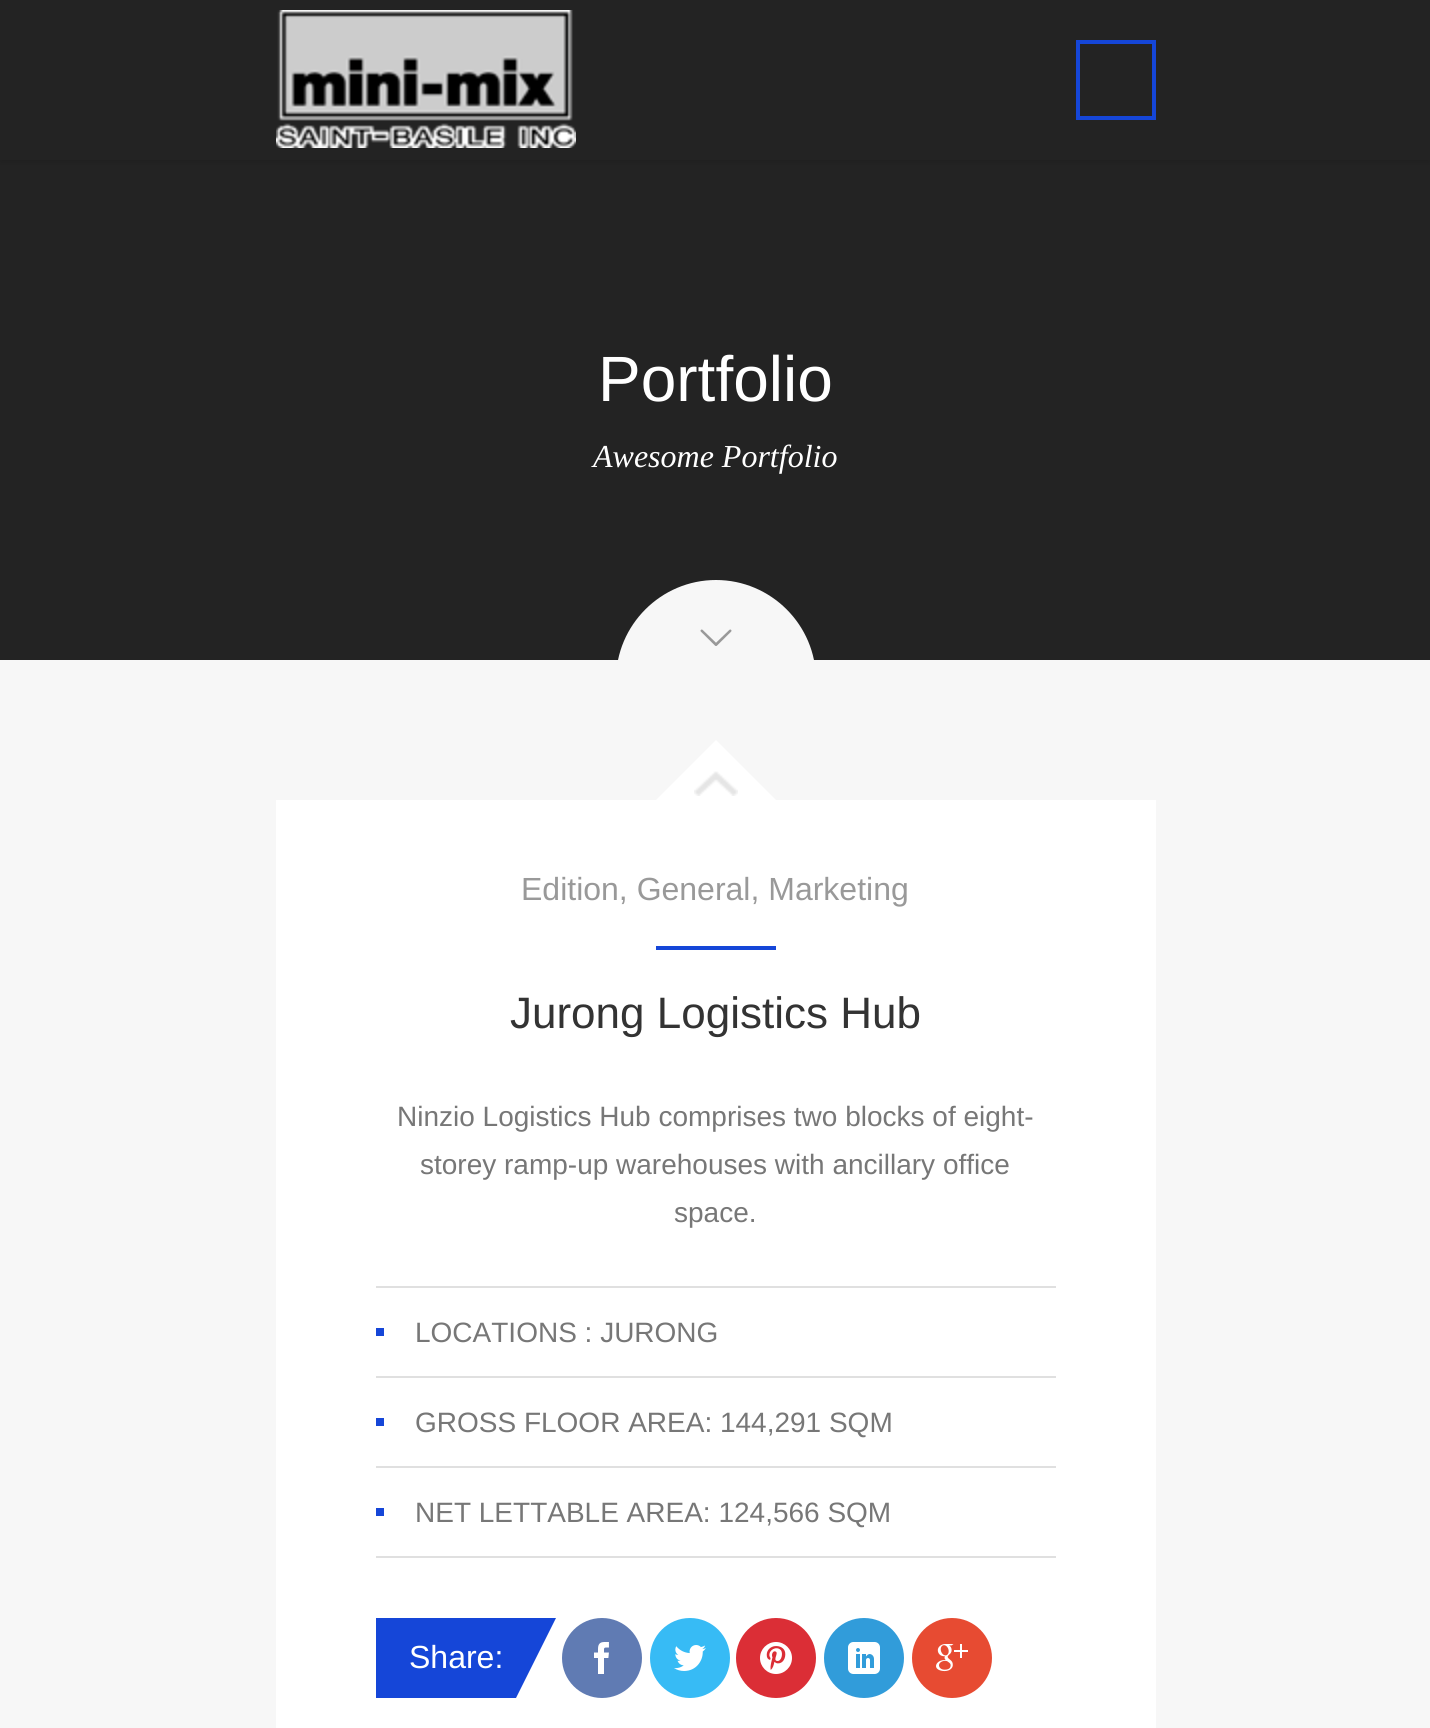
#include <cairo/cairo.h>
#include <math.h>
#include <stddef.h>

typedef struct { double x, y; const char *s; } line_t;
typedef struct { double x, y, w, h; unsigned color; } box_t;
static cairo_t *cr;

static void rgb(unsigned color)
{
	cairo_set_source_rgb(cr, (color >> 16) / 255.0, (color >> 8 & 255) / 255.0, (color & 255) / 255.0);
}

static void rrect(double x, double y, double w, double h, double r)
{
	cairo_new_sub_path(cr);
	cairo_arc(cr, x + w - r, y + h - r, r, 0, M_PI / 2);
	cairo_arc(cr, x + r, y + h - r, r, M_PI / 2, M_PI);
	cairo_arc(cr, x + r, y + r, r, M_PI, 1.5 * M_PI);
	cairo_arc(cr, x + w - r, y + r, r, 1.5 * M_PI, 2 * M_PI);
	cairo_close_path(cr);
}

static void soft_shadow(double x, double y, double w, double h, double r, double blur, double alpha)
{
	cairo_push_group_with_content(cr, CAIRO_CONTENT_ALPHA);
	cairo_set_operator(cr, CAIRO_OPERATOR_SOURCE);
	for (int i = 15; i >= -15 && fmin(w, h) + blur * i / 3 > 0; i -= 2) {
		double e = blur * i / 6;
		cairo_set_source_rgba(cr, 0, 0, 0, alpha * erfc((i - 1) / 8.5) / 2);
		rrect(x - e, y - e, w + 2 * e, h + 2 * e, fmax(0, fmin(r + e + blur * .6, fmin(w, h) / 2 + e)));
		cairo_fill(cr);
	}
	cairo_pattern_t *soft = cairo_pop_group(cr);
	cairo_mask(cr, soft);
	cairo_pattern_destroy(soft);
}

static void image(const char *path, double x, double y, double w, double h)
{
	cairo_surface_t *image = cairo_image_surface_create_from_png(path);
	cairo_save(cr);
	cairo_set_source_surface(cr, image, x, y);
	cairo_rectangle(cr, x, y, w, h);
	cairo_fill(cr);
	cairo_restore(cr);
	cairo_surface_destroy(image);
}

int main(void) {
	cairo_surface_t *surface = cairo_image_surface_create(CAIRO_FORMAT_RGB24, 1430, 1728);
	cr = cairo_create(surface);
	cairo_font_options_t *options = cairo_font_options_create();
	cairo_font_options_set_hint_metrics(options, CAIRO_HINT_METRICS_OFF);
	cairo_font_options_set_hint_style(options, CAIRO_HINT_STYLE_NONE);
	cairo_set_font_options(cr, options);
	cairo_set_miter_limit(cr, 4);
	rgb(0xf7f7f7);
	cairo_paint(cr);
	rgb(0x232323);
	cairo_rectangle(cr, 0, 160, 1430, 500);
	cairo_fill(cr);
	rgb(0x000000);
	soft_shadow(0, 2, 1430, 160, 0, 3, 0.11);
	rgb(0x232323);
	cairo_rectangle(cr, 0, 0, 1430, 160);
	cairo_fill(cr);
	image("img/1.png", 276, 10, 300, 138);
	cairo_rectangle(cr, 1078, 42, 76, 76);
	rgb(0x1546d8);
	cairo_set_line_width(cr, 4);
	cairo_stroke(cr);
	rgb(0xf7f7f7);
	cairo_new_path(cr);
	cairo_move_to(cr, 716, 580);
	cairo_curve_to(cr, 771, 580, 816, 625, 816, 680);
	cairo_line_to(cr, 816, 660);
	cairo_line_to(cr, 616, 660);
	cairo_line_to(cr, 616, 680);
	cairo_curve_to(cr, 616, 625, 661, 580, 716, 580);
	cairo_close_path(cr);
	cairo_fill(cr);
	image("img/2.png", 700, 629, 32, 17);
	rgb(0xffffff);
	cairo_rectangle(cr, 276, 800, 880, 928);
	cairo_fill(cr);
	cairo_new_path(cr);
	cairo_move_to(cr, 776, 800);
	cairo_line_to(cr, 656, 800);
	cairo_line_to(cr, 716, 740);
	cairo_close_path(cr);
	cairo_fill(cr);
	image("img/3.png", 694, 771, 44, 25);
	{
		static const box_t items[] = {
			{656, 946, 120, 4, 0x1546d8},
			{376, 1286, 680, 2, 0xe0e0e0},
			{376, 1328, 8, 8, 0x1546d8},
			{376, 1376, 680, 2, 0xe0e0e0},
			{376, 1418, 8, 8, 0x1546d8},
			{376, 1466, 680, 2, 0xe0e0e0},
			{376, 1556, 680, 2, 0xe0e0e0},
			{376, 1508, 8, 8, 0x1546d8},
			{376, 1618, 140, 80, 0x1546d8},
		};
		for (size_t i = 0; i < sizeof items / sizeof *items; i++) {
			rgb(items[i].color);
			cairo_rectangle(cr, items[i].x, items[i].y, items[i].w, items[i].h);
			cairo_fill(cr);
		}
	}
	cairo_new_path(cr);
	cairo_move_to(cr, 516, 1618);
	cairo_line_to(cr, 556, 1618);
	cairo_line_to(cr, 516, 1698);
	cairo_close_path(cr);
	cairo_fill(cr);
	rgb(0x607bb3);
	cairo_arc(cr, 602, 1658, 40, 0, 2 * M_PI);
	cairo_fill(cr);
	image("img/4.png", 594, 1642, 15, 32);
	rgb(0x37bbf5);
	cairo_arc(cr, 690, 1658, 40, 0, 2 * M_PI);
	cairo_fill(cr);
	image("img/5.png", 674, 1645, 32, 26);
	rgb(0xdb2e36);
	cairo_arc(cr, 776, 1658, 40, 0, 2 * M_PI);
	cairo_fill(cr);
	image("img/6.png", 760, 1642, 32, 32);
	rgb(0x319cda);
	cairo_arc(cr, 864, 1658, 40, 0, 2 * M_PI);
	cairo_fill(cr);
	image("img/7.png", 848, 1642, 32, 32);
	rgb(0xe74b32);
	cairo_arc(cr, 952, 1658, 40, 0, 2 * M_PI);
	cairo_fill(cr);
	image("img/8.png", 936, 1644, 32, 28);
	cairo_select_font_face(cr, "Liberation Sans", CAIRO_FONT_SLANT_NORMAL, CAIRO_FONT_WEIGHT_NORMAL);
	cairo_set_font_size(cr, 64);
	rgb(0xffffff);
	cairo_move_to(cr, 598, 401);
	cairo_show_text(cr, "Portfolio");
	cairo_select_font_face(cr, "Liberation Serif", CAIRO_FONT_SLANT_ITALIC, CAIRO_FONT_WEIGHT_NORMAL);
	cairo_set_font_size(cr, 32);
	cairo_move_to(cr, 593, 467);
	cairo_show_text(cr, "Awesome Portfolio");
	cairo_select_font_face(cr, "Liberation Sans", CAIRO_FONT_SLANT_NORMAL, CAIRO_FONT_WEIGHT_NORMAL);
	rgb(0x999999);
	cairo_move_to(cr, 521, 900);
	cairo_show_text(cr, "Edition, General, Marketing");
	cairo_set_font_size(cr, 44);
	rgb(0x333333);
	cairo_move_to(cr, 510, 1028);
	cairo_show_text(cr, "Jurong Logistics Hub");
	cairo_set_font_size(cr, 28);
	rgb(0x777777);
	{
		static const line_t items[] = {
			{397, 1126, "Ninzio Logistics Hub comprises two blocks of eight-"},
			{420, 1174, "storey ramp-up warehouses with ancillary office"},
			{674, 1222, "space."},
			{415, 1342, "LOCATIONS : JURONG"},
			{415, 1432, "GROSS FLOOR AREA: 144,291 SQM"},
			{415, 1522, "NET LETTABLE AREA: 124,566 SQM"},
		};
		for (size_t i = 0; i < sizeof items / sizeof *items; i++) {
			cairo_move_to(cr, items[i].x, items[i].y);
			cairo_show_text(cr, items[i].s);
		}
	}
	cairo_set_font_size(cr, 32);
	rgb(0xffffff);
	cairo_move_to(cr, 409, 1668);
	cairo_show_text(cr, "Share:");
	cairo_surface_write_to_png(surface, "page.png");
	cairo_font_options_destroy(options);
	cairo_destroy(cr);
	cairo_surface_destroy(surface);
	return 0;
}
